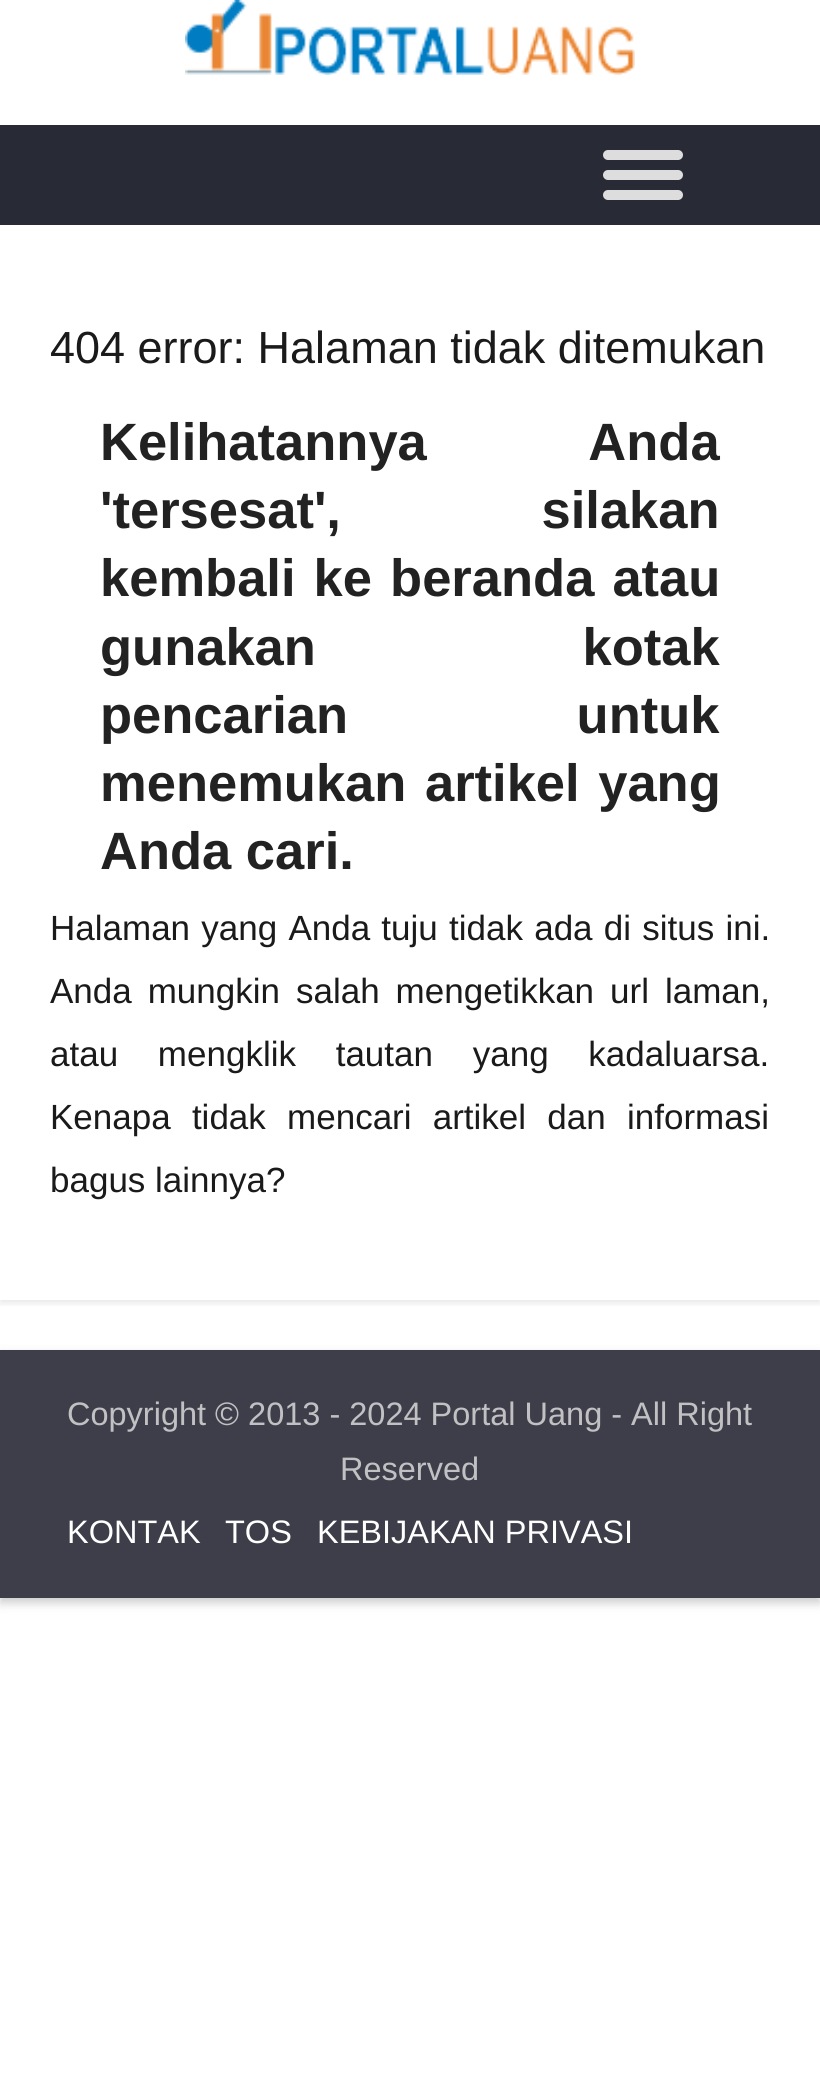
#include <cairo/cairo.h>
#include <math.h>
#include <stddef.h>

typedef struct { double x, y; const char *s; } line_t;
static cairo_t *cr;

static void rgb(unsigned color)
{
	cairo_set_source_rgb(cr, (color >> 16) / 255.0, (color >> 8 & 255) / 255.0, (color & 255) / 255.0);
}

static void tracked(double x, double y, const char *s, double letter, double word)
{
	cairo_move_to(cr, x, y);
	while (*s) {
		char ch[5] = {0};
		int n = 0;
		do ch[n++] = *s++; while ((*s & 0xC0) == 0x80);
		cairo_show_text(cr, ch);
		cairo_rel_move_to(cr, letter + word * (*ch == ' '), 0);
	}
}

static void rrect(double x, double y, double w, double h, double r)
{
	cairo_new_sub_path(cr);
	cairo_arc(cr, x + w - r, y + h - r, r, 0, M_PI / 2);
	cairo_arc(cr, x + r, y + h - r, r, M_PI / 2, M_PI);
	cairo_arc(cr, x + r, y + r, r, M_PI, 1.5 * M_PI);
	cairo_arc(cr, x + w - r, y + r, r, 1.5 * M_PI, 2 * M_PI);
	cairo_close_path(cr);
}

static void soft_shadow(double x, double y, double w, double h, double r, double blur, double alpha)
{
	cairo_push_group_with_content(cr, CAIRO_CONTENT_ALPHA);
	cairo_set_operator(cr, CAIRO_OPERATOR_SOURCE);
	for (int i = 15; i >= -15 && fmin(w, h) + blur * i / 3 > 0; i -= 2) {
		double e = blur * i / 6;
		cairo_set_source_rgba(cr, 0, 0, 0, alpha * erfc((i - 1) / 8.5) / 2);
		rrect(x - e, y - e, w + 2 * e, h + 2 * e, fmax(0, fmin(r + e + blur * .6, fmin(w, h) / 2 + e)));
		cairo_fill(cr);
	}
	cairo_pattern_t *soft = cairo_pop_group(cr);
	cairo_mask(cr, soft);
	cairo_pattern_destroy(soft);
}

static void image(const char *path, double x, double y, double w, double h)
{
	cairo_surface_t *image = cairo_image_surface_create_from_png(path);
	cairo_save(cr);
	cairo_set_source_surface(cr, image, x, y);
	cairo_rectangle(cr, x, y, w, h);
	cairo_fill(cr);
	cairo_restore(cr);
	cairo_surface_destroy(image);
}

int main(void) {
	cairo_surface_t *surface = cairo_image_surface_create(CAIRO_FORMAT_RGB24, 820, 2083);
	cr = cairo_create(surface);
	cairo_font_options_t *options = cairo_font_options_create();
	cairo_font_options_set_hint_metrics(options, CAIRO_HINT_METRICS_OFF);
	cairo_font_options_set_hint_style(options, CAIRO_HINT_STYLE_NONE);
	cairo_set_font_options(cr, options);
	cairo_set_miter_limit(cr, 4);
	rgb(0xffffff);
	cairo_paint(cr);
	image("img/1.png", 185, 0, 450, 75);
	rgb(0x282a35);
	cairo_rectangle(cr, 0, 125, 820, 100);
	cairo_fill(cr);
	rgb(0xdddddd);
	rrect(603, 150, 80, 10, 5);
	cairo_fill(cr);
	rrect(603, 170, 80, 10, 5);
	cairo_fill(cr);
	rrect(603, 190, 80, 10, 5);
	cairo_fill(cr);
	cairo_save(cr);
	cairo_rectangle(cr, 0, 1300, 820, 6);
	cairo_clip(cr);
	rgb(0x000000);
	soft_shadow(0, 265, 820, 1038, 0, 4, 0.1);
	cairo_restore(cr);
	rgb(0x000000);
	soft_shadow(0, 1355, 820, 248, 0, 5, 0.2);
	rgb(0x3d3e49);
	cairo_rectangle(cr, 0, 1350, 820, 248);
	cairo_fill(cr);
	cairo_select_font_face(cr, "Liberation Sans", CAIRO_FONT_SLANT_NORMAL, CAIRO_FONT_WEIGHT_NORMAL);
	cairo_set_font_size(cr, 45);
	rgb(0x1a1a1a);
	cairo_move_to(cr, 50, 363);
	cairo_show_text(cr, "404 error: Halaman tidak ditemukan");
	cairo_select_font_face(cr, "Liberation Sans", CAIRO_FONT_SLANT_NORMAL, CAIRO_FONT_WEIGHT_BOLD);
	cairo_set_font_size(cr, 52.5);
	rgb(0x222222);
	tracked(100, 460, "Kelihatannya Anda", 0, 147);
	tracked(100, 528, "'tersesat', silakan", 0, 186);
	tracked(100, 596, "kembali ke beranda atau", 0, 3.5);
	tracked(100, 665, "gunakan kotak", 0, 252);
	tracked(100, 733, "pencarian untuk", 0, 214);
	tracked(100, 801, "menemukan artikel yang", 0, 4);
	cairo_move_to(cr, 100, 869);
	cairo_show_text(cr, "Anda cari.");
	cairo_select_font_face(cr, "Liberation Sans", CAIRO_FONT_SLANT_NORMAL, CAIRO_FONT_WEIGHT_NORMAL);
	cairo_set_font_size(cr, 35);
	rgb(0x1a1a1a);
	tracked(50, 940, "Halaman yang Anda tuju tidak ada di situs ini.", 0, 1.5);
	tracked(50, 1003, "Anda mungkin salah mengetikkan url laman,", 0, 6.25);
	tracked(50, 1066, "atau mengklik tautan yang kadaluarsa.", 0, 30);
	tracked(50, 1129, "Kenapa tidak mencari artikel dan informasi", 0, 11.5);
	cairo_move_to(cr, 50, 1192);
	cairo_show_text(cr, "bagus lainnya?");
	cairo_set_font_size(cr, 32.5);
	rgb(0xc1c1c4);
	cairo_move_to(cr, 67, 1425);
	cairo_show_text(cr, "Copyright © 2013 - 2024 Portal Uang - All Right");
	cairo_move_to(cr, 340, 1480);
	cairo_show_text(cr, "Reserved");
	rgb(0xffffff);
	{
		static const line_t items[] = {
			{67, 1543, "KONTAK"},
			{225, 1543, "TOS"},
			{317, 1543, "KEBIJAKAN PRIVASI"},
		};
		for (size_t i = 0; i < sizeof items / sizeof *items; i++) {
			cairo_move_to(cr, items[i].x, items[i].y);
			cairo_show_text(cr, items[i].s);
		}
	}
	cairo_surface_write_to_png(surface, "page.png");
	cairo_font_options_destroy(options);
	cairo_destroy(cr);
	cairo_surface_destroy(surface);
	return 0;
}
